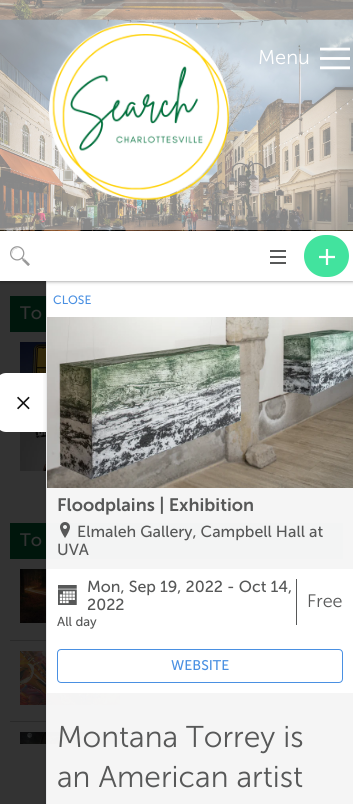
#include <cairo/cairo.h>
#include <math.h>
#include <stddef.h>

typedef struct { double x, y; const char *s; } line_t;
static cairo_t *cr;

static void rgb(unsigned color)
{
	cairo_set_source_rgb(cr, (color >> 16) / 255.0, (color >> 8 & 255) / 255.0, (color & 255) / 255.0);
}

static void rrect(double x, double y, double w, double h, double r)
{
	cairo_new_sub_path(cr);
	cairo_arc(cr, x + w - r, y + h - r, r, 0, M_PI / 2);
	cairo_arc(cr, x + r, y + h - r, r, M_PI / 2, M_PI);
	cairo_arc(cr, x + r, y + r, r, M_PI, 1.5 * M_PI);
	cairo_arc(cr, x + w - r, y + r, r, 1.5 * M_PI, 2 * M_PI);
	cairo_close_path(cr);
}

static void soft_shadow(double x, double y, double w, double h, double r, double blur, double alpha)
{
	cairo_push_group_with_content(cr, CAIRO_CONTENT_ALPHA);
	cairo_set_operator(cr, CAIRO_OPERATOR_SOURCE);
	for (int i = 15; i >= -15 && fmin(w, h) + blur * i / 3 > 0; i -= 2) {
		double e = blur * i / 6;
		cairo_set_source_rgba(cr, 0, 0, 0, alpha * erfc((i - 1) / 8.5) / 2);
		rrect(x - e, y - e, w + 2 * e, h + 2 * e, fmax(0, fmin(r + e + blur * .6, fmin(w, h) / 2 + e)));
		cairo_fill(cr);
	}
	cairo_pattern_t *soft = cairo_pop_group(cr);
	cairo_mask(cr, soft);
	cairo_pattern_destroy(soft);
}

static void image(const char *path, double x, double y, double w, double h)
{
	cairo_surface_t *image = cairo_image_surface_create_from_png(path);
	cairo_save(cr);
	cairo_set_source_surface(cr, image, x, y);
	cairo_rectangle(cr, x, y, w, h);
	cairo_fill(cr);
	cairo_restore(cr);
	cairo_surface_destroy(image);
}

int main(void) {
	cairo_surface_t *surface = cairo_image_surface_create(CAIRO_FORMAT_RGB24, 353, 804);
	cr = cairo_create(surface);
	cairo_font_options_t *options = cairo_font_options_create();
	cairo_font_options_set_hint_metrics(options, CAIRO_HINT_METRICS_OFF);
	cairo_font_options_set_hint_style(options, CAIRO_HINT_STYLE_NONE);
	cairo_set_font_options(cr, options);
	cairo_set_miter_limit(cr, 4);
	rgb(0x333333);
	cairo_paint(cr);
	rgb(0x00160c);
	cairo_rectangle(cr, 10, 523, 333, 36);
	cairo_fill(cr);
	rgb(0x292929);
	cairo_rectangle(cr, 10, 721, 333, 1);
	cairo_fill(cr);
	image("img/10.png", 20, 651, 100, 54);
	image("img/11.png", 20, 732, 100, 12);
	rgb(0x00160c);
	cairo_rectangle(cr, 10, 296, 36, 36);
	cairo_fill(cr);
	image("img/7.png", 20, 342, 26, 31);
	image("img/8.png", 20, 432, 26, 39);
	rgb(0x292929);
	cairo_rectangle(cr, 10, 640, 36, 1);
	cairo_fill(cr);
	image("img/9.png", 20, 569, 26, 54);
	rgb(0xffffff);
	cairo_new_path(cr);
	cairo_move_to(cr, 6, 373);
	cairo_line_to(cr, 46, 373);
	cairo_line_to(cr, 46, 432);
	cairo_line_to(cr, 6, 432);
	cairo_curve_to(cr, 0.5, 432, -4, 427.5, -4, 422);
	cairo_line_to(cr, -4, 383);
	cairo_curve_to(cr, -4, 377.5, 0.5, 373, 6, 373);
	cairo_close_path(cr);
	cairo_fill(cr);
	cairo_save(cr);
	cairo_rectangle(cr, 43, 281, 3, 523);
	cairo_clip(cr);
	rgb(0x000000);
	soft_shadow(44, 280, 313, 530, 0, 2, 0.06);
	cairo_restore(cr);
	rgb(0xe8e9ea);
	cairo_rectangle(cr, 46, 281, 1, 523);
	cairo_fill(cr);
	rgb(0xffffff);
	cairo_rectangle(cr, 47, 281, 306, 36);
	cairo_fill(cr);
	rgb(0x000000);
	soft_shadow(0, 231, 353, 50, 0, 2, 0.5);
	image("img/1.png", 0, 0, 353, 231);
	cairo_set_source_rgba(cr, 0.067, 0.067, 0.067, 0.07);
	cairo_rectangle(cr, 0, 230, 353, 1);
	cairo_fill(cr);
	image("img/2.png", 49, 23, 181, 178);
	image("img/3.png", 320, 47, 30, 23);
	rgb(0xffffff);
	cairo_rectangle(cr, 0, 231, 353, 50);
	cairo_fill(cr);
	image("img/4.png", 10, 246, 20, 20);
	image("img/5.png", 270, 250, 16, 14);
	rgb(0x42e39e);
	rrect(304, 235, 45, 42, 21);
	cairo_fill(cr);
	image("img/6.png", 319, 249, 16, 16);
	image("img/12.png", 17, 396, 13, 14);
	cairo_set_source_rgba(cr, 1, 1, 1, 0.95);
	cairo_rectangle(cr, 47, 488, 306, 316);
	cairo_fill(cr);
	image("img/13.png", 47, 317, 306, 171);
	image("img/14.png", 60, 522, 10, 16);
	rgb(0xffffff);
	cairo_rectangle(cr, 47, 569, 306, 124);
	cairo_fill(cr);
	image("img/15.png", 58, 585, 19, 20);
	rgb(0x575858);
	cairo_rectangle(cr, 296, 579, 1, 46);
	cairo_fill(cr);
	rrect(57.5, 649.5, 285, 33, 3.5);
	rgb(0x4a90e2);
	cairo_set_line_width(cr, 1);
	cairo_stroke(cr);
	cairo_select_font_face(cr, "Museo Sans Light", CAIRO_FONT_SLANT_NORMAL, CAIRO_FONT_WEIGHT_NORMAL);
	cairo_set_font_size(cr, 20);
	rgb(0xffffff);
	cairo_move_to(cr, 258, 64);
	cairo_show_text(cr, "Menu");
	cairo_select_font_face(cr, "Museo Sans", CAIRO_FONT_SLANT_NORMAL, CAIRO_FONT_WEIGHT_NORMAL);
	cairo_set_font_size(cr, 18);
	rgb(0x333333);
	cairo_move_to(cr, 20, 319);
	cairo_show_text(cr, "To");
	cairo_move_to(cr, 20, 546);
	cairo_show_text(cr, "To");
	cairo_set_font_size(cr, 12);
	rgb(0x4a90e2);
	cairo_move_to(cr, 53, 304);
	cairo_show_text(cr, "CLOSE");
	cairo_select_font_face(cr, "Museo Sans SemiBold", CAIRO_FONT_SLANT_NORMAL, CAIRO_FONT_WEIGHT_NORMAL);
	cairo_set_font_size(cr, 18);
	rgb(0x575858);
	cairo_move_to(cr, 57, 511);
	cairo_show_text(cr, "Floodplains | Exhibition");
	cairo_select_font_face(cr, "Museo Sans", CAIRO_FONT_SLANT_NORMAL, CAIRO_FONT_WEIGHT_NORMAL);
	cairo_set_font_size(cr, 16);
	{
		static const line_t items[] = {
			{77, 537, "Elmaleh Gallery, Campbell Hall at"},
			{57, 555, "UVA"},
			{87, 592, "Mon, Sep 19, 2022 - Oct 14,"},
			{87, 610, "2022"},
		};
		for (size_t i = 0; i < sizeof items / sizeof *items; i++) {
			cairo_move_to(cr, items[i].x, items[i].y);
			cairo_show_text(cr, items[i].s);
		}
	}
	cairo_set_font_size(cr, 13);
	cairo_move_to(cr, 57, 626);
	cairo_show_text(cr, "All day");
	cairo_select_font_face(cr, "Museo Sans Light", CAIRO_FONT_SLANT_NORMAL, CAIRO_FONT_WEIGHT_NORMAL);
	cairo_set_font_size(cr, 18);
	cairo_move_to(cr, 307, 607);
	cairo_show_text(cr, "Free");
	cairo_select_font_face(cr, "Museo Sans", CAIRO_FONT_SLANT_NORMAL, CAIRO_FONT_WEIGHT_NORMAL);
	cairo_set_font_size(cr, 14);
	rgb(0x4a90e2);
	cairo_move_to(cr, 171, 670);
	cairo_show_text(cr, "WEBSITE");
	cairo_select_font_face(cr, "Museo Sans Light", CAIRO_FONT_SLANT_NORMAL, CAIRO_FONT_WEIGHT_NORMAL);
	cairo_set_font_size(cr, 30);
	rgb(0x575858);
	cairo_move_to(cr, 57, 747);
	cairo_show_text(cr, "Montana Torrey is");
	cairo_move_to(cr, 57, 787);
	cairo_show_text(cr, "an American artist");
	cairo_surface_write_to_png(surface, "page.png");
	cairo_font_options_destroy(options);
	cairo_destroy(cr);
	cairo_surface_destroy(surface);
	return 0;
}
